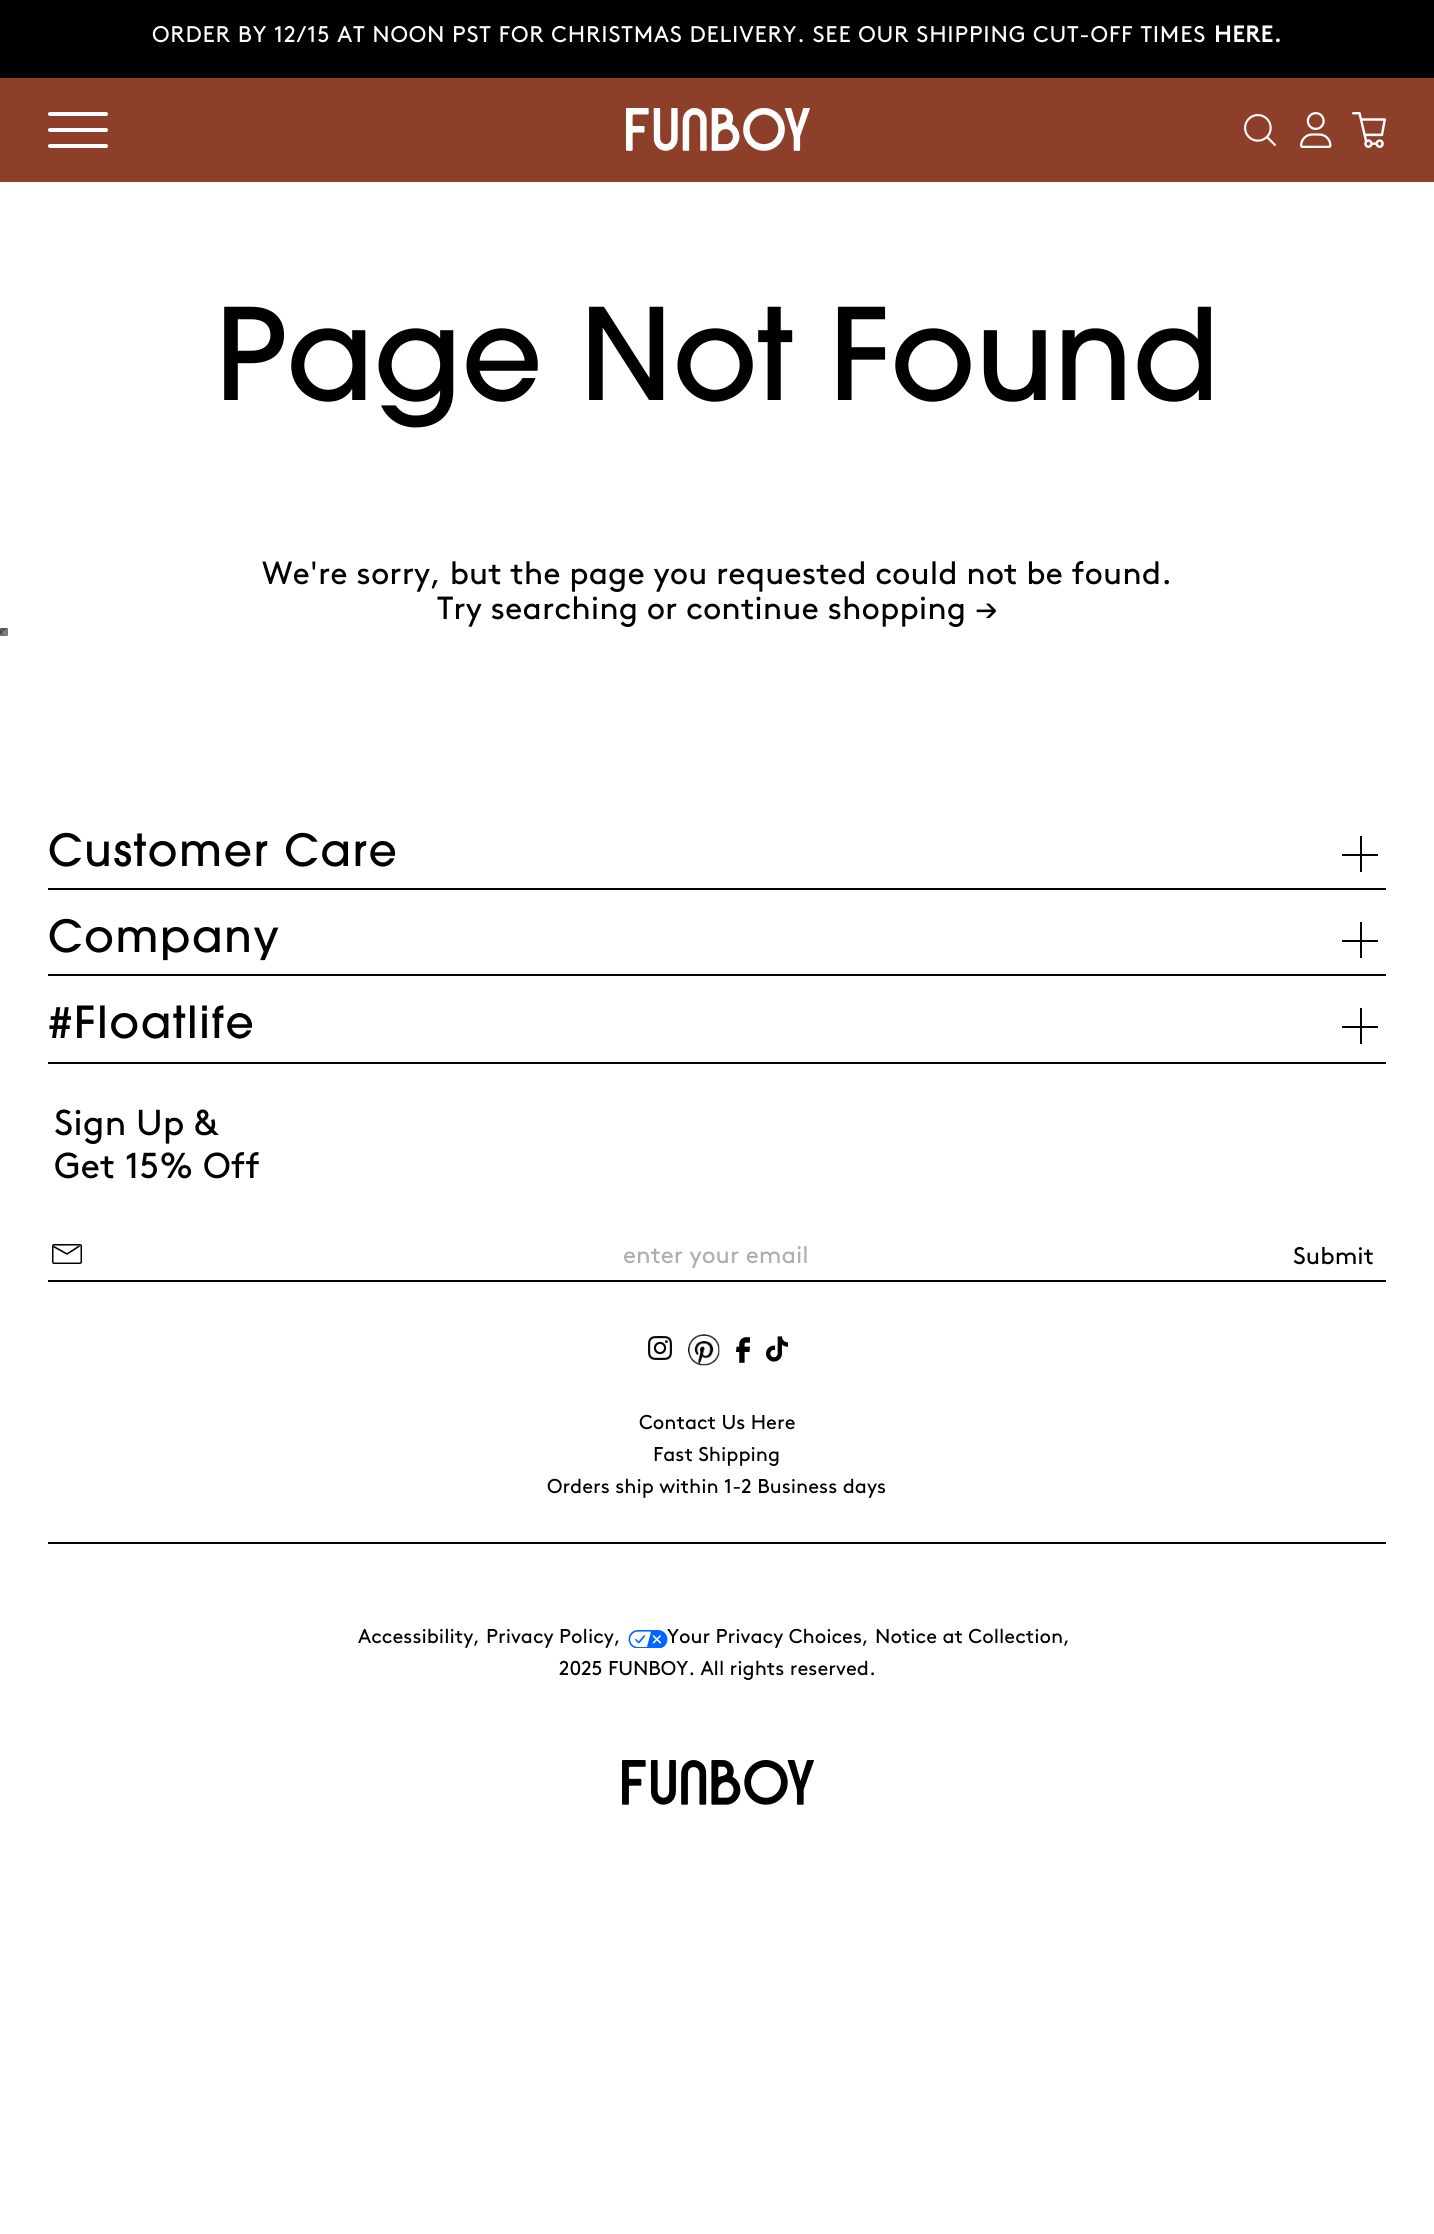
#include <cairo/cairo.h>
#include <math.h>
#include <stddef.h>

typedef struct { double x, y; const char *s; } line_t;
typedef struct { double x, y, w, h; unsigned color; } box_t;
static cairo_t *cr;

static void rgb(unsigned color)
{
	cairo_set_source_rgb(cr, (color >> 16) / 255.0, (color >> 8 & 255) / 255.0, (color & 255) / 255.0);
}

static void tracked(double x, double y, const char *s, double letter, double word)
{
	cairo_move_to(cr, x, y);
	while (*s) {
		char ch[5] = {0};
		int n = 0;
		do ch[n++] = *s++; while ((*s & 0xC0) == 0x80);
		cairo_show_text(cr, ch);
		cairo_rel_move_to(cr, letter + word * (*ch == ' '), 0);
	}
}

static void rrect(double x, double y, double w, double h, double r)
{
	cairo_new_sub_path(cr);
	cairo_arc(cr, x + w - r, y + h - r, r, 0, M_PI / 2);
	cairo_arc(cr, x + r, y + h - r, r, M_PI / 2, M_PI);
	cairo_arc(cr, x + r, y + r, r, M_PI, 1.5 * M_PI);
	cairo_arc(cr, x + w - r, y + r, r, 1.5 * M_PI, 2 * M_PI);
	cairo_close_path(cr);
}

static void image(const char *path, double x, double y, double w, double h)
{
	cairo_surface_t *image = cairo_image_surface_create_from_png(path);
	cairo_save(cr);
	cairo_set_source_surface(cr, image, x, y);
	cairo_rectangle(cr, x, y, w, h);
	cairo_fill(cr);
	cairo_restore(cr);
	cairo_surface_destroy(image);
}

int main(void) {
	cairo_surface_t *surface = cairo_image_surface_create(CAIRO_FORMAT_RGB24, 1434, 2234);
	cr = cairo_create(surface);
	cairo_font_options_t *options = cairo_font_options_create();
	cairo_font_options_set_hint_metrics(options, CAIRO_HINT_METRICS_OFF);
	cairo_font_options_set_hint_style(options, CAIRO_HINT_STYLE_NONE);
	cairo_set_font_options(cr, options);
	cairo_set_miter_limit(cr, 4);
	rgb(0xffffff);
	cairo_paint(cr);
	rgb(0x8d3f29);
	cairo_rectangle(cr, 0, 78, 1434, 104);
	cairo_fill(cr);
	rgb(0x000000);
	cairo_rectangle(cr, 0, 0, 1434, 78);
	cairo_fill(cr);
	rgb(0xffffff);
	rrect(48, 112, 60, 4, 2);
	cairo_fill(cr);
	rrect(48, 128, 60, 4, 2);
	cairo_fill(cr);
	rrect(48, 144, 60, 4, 2);
	cairo_fill(cr);
	image("img/1.png", 626, 108, 184, 43);
	image("img/2.png", 1244, 114, 32, 32);
	image("img/3.png", 1300, 112, 32, 36);
	image("img/4.png", 1352, 112, 34, 36);
	image("img/5.png", 224, 306, 987, 122);
	rgb(0x4f4f4f);
	cairo_new_path(cr);
	cairo_move_to(cr, 0, 628);
	cairo_line_to(cr, 8, 628);
	cairo_line_to(cr, 4, 632);
	cairo_close_path(cr);
	cairo_fill(cr);
	rgb(0x767676);
	cairo_new_path(cr);
	cairo_move_to(cr, 8, 628);
	cairo_line_to(cr, 8, 636);
	cairo_line_to(cr, 4, 632);
	cairo_close_path(cr);
	cairo_fill(cr);
	cairo_new_path(cr);
	cairo_move_to(cr, 8, 636);
	cairo_line_to(cr, 0, 636);
	cairo_line_to(cr, 4, 632);
	cairo_close_path(cr);
	cairo_fill(cr);
	rgb(0x4f4f4f);
	cairo_new_path(cr);
	cairo_move_to(cr, 0, 636);
	cairo_line_to(cr, 0, 628);
	cairo_line_to(cr, 4, 632);
	cairo_close_path(cr);
	cairo_fill(cr);
	rgb(0x000000);
	cairo_rectangle(cr, 48, 1542, 1338, 2);
	cairo_fill(cr);
	cairo_rectangle(cr, 48, 888, 1338, 2);
	cairo_fill(cr);
	image("img/6.png", 49, 832, 347, 35);
	{
		static const box_t items[] = {
			{1360, 836, 2, 36, 0x000000},
			{1342, 854, 36, 2, 0x000000},
			{48, 974, 1338, 2, 0x000000},
		};
		for (size_t i = 0; i < sizeof items / sizeof *items; i++) {
			rgb(items[i].color);
			cairo_rectangle(cr, items[i].x, items[i].y, items[i].w, items[i].h);
			cairo_fill(cr);
		}
	}
	image("img/7.png", 49, 918, 230, 43);
	{
		static const box_t items[] = {
			{1360, 922, 2, 36, 0x000000},
			{1342, 940, 36, 2, 0x000000},
			{48, 1062, 1338, 2, 0x000000},
		};
		for (size_t i = 0; i < sizeof items / sizeof *items; i++) {
			rgb(items[i].color);
			cairo_rectangle(cr, items[i].x, items[i].y, items[i].w, items[i].h);
			cairo_fill(cr);
		}
	}
	image("img/8.png", 49, 1005, 204, 34);
	cairo_rectangle(cr, 1360, 1008, 2, 36);
	cairo_fill(cr);
	cairo_rectangle(cr, 1342, 1026, 36, 2);
	cairo_fill(cr);
	rrect(52.75, 1244.75, 28.5, 18.5, 1.25);
	cairo_set_line_width(cr, 1.5);
	cairo_stroke(cr);
	cairo_new_path(cr);
	cairo_move_to(cr, 53.5, 1246.5);
	cairo_line_to(cr, 67, 1254);
	cairo_line_to(cr, 79.5, 1246);
	cairo_set_line_width(cr, 1.6);
	cairo_stroke(cr);
	cairo_rectangle(cr, 48, 1280, 1338, 2);
	cairo_fill(cr);
	image("img/9.png", 648, 1336, 24, 24);
	image("img/10.png", 688, 1334, 32, 32);
	image("img/11.png", 736, 1337, 14, 26);
	image("img/12.png", 766, 1336, 22, 26);
	image("img/13.png", 628, 1630, 40, 18);
	image("img/14.png", 622, 1760, 192, 45);
	cairo_select_font_face(cr, "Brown", CAIRO_FONT_SLANT_NORMAL, CAIRO_FONT_WEIGHT_NORMAL);
	cairo_set_font_size(cr, 22.65);
	rgb(0xffffff);
	tracked(152, 42, "ORDER BY 12/15 AT NOON PST FOR CHRISTMAS DELIVERY. SEE OUR SHIPPING CUT-OFF TIMES", 0.8, 0);
	cairo_select_font_face(cr, "Brown", CAIRO_FONT_SLANT_NORMAL, CAIRO_FONT_WEIGHT_BOLD);
	tracked(1214, 42, "HERE.", 0.8, 0);
	cairo_select_font_face(cr, "Brown", CAIRO_FONT_SLANT_NORMAL, CAIRO_FONT_WEIGHT_NORMAL);
	cairo_set_font_size(cr, 32);
	rgb(0x000000);
	cairo_move_to(cr, 262, 584);
	cairo_show_text(cr, "We're sorry, but the page you requested could not be found.");
	cairo_move_to(cr, 437, 619);
	cairo_show_text(cr, "Try searching or continue shopping →");
	cairo_set_font_size(cr, 36);
	cairo_move_to(cr, 54, 1135);
	cairo_show_text(cr, "Sign Up &");
	cairo_move_to(cr, 54, 1178);
	cairo_show_text(cr, "Get 15% Off");
	cairo_save(cr);
	cairo_rectangle(cr, 146, 1246, 1140, 22);
	cairo_clip(cr);
	cairo_set_font_size(cr, 24);
	rgb(0xaeaeae);
	cairo_move_to(cr, 623, 1263);
	cairo_show_text(cr, "enter your email");
	cairo_restore(cr);
	cairo_set_font_size(cr, 24);
	cairo_move_to(cr, 1293, 1264);
	cairo_show_text(cr, "Submit");
	cairo_set_font_size(cr, 20);
	{
		static const line_t items[] = {
			{639, 1429, "Contact Us Here"},
			{653, 1461, "Fast Shipping"},
			{547, 1493, "Orders ship within 1-2 Business days"},
			{358, 1643, "Accessibility,"},
			{486, 1643, "Privacy Policy,"},
			{667, 1643, "Your Privacy Choices,"},
			{875, 1643, "Notice at Collection,"},
			{559, 1675, "2025 FUNBOY. All rights reserved."},
		};
		for (size_t i = 0; i < sizeof items / sizeof *items; i++) {
			cairo_move_to(cr, items[i].x, items[i].y);
			cairo_show_text(cr, items[i].s);
		}
	}
	cairo_surface_write_to_png(surface, "page.png");
	cairo_font_options_destroy(options);
	cairo_destroy(cr);
	cairo_surface_destroy(surface);
	return 0;
}
